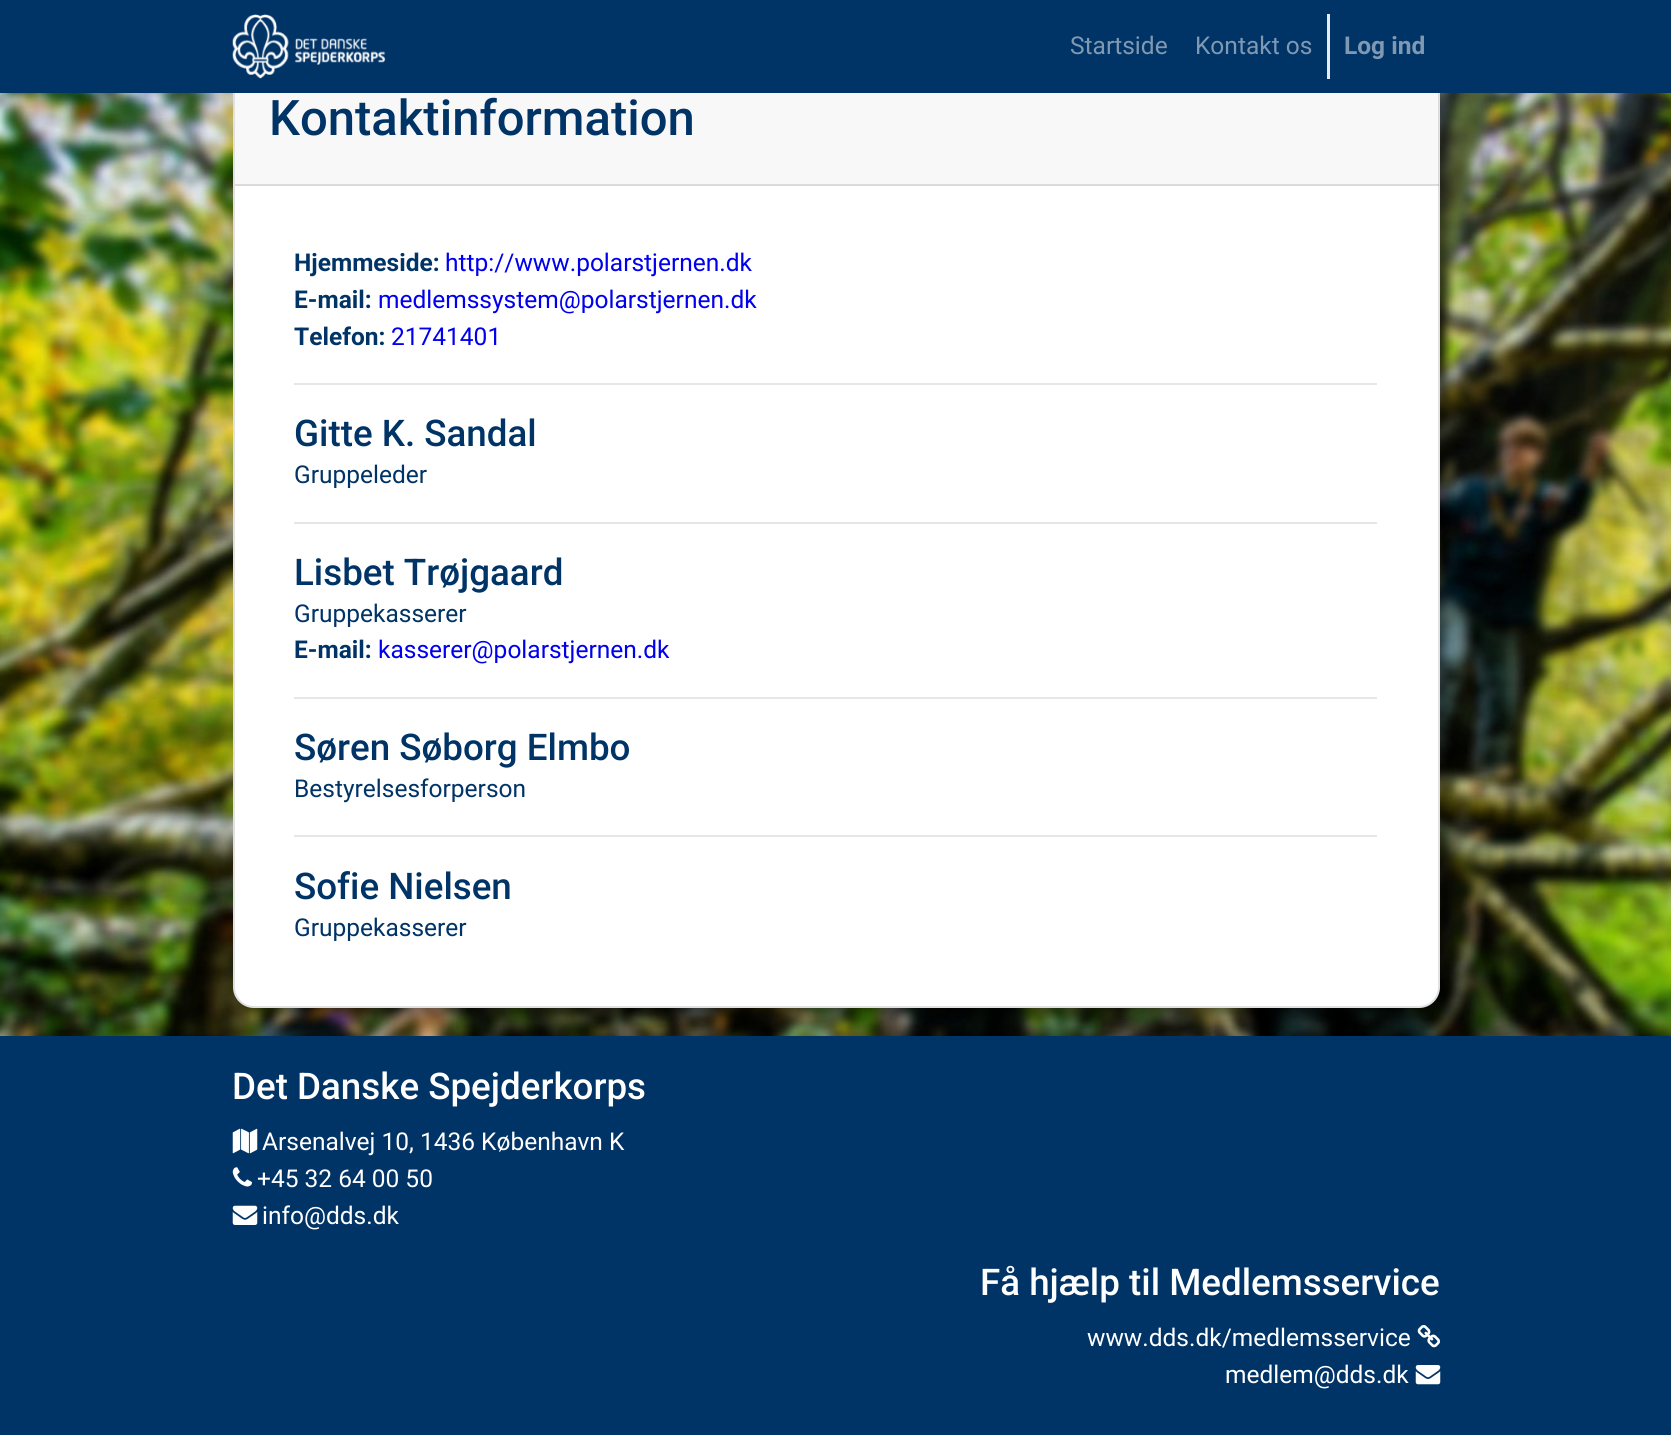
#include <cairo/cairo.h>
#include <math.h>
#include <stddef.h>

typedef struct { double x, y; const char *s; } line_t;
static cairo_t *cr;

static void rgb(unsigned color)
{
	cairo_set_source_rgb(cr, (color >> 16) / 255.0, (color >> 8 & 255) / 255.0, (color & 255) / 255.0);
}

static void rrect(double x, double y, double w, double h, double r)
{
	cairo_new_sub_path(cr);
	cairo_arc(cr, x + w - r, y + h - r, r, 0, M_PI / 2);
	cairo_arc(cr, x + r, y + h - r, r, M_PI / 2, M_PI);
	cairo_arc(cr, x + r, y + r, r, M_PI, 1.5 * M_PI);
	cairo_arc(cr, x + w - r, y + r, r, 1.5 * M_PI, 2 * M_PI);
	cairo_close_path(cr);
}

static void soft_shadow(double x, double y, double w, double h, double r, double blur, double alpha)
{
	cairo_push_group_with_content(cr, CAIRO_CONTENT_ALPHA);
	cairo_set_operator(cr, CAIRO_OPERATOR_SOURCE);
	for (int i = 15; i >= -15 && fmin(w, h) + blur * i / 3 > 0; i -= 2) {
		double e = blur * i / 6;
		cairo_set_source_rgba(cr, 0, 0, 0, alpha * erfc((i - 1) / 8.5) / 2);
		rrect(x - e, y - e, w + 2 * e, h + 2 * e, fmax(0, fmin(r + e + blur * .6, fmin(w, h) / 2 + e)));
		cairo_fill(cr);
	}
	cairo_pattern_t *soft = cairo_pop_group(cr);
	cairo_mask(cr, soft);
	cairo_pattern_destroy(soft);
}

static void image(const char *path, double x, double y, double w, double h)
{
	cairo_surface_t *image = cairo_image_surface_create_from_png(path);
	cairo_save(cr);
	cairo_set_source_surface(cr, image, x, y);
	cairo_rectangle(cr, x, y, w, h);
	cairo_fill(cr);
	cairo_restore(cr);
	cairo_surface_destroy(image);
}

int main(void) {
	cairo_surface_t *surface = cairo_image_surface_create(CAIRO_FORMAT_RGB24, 1671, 1435);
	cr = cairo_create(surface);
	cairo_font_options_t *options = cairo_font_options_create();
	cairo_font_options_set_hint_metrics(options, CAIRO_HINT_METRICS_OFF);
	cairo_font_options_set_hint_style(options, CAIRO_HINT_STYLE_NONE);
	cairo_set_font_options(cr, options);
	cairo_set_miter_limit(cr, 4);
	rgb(0xffffff);
	cairo_paint(cr);
	image("img/2.png", 0, 93, 1671, 943);
	rgb(0x000000);
	soft_shadow(240, 74, 1207, 941, 21, 4.5, 0.35);
	rgb(0xffffff);
	rrect(233, 67, 1207, 941, 21);
	cairo_fill(cr);
	rrect(234, 68, 1205, 939, 20);
	cairo_set_source_rgba(cr, 0, 0, 0, 0.12);
	cairo_stroke(cr);
	rgb(0x003366);
	cairo_rectangle(cr, 0, 0, 1671, 93);
	cairo_fill(cr);
	image("img/1.png", 232, 14, 154, 65);
	rgb(0xe9ecef);
	cairo_rectangle(cr, 1327, 14, 3, 65);
	cairo_fill(cr);
	cairo_set_source_rgba(cr, 0, 0, 0, 0.03);
	cairo_rectangle(cr, 235, 93, 1204, 93);
	cairo_fill(cr);
	cairo_set_source_rgba(cr, 0, 0, 0, 0.12);
	cairo_rectangle(cr, 235, 184, 1204, 2);
	cairo_fill(cr);
	rgb(0xe6e6e6);
	cairo_rectangle(cr, 294, 383, 1083, 2);
	cairo_fill(cr);
	cairo_rectangle(cr, 294, 522, 1083, 2);
	cairo_fill(cr);
	cairo_rectangle(cr, 294, 697, 1083, 2);
	cairo_fill(cr);
	cairo_rectangle(cr, 294, 835, 1083, 2);
	cairo_fill(cr);
	rgb(0x003366);
	cairo_rectangle(cr, 0, 1036, 1671, 399);
	cairo_fill(cr);
	image("img/3.png", 232, 1128, 26, 26);
	image("img/4.png", 232, 1167, 20, 20);
	image("img/5.png", 232, 1205, 26, 20);
	image("img/6.png", 1417, 1325, 23, 23);
	image("img/7.png", 1415, 1365, 26, 20);
	cairo_select_font_face(cr, "Roboto", CAIRO_FONT_SLANT_NORMAL, CAIRO_FONT_WEIGHT_NORMAL);
	cairo_set_font_size(cr, 24.5);
	rgb(0x8099b3);
	cairo_move_to(cr, 1070, 54);
	cairo_show_text(cr, "Startside");
	cairo_move_to(cr, 1195, 54);
	cairo_show_text(cr, "Kontakt os");
	cairo_select_font_face(cr, "Roboto", CAIRO_FONT_SLANT_NORMAL, CAIRO_FONT_WEIGHT_BOLD);
	cairo_move_to(cr, 1344, 54);
	cairo_show_text(cr, "Log ind");
	cairo_select_font_face(cr, "Roboto Medium", CAIRO_FONT_SLANT_NORMAL, CAIRO_FONT_WEIGHT_NORMAL);
	cairo_set_font_size(cr, 49);
	rgb(0x003366);
	cairo_move_to(cr, 269, 135);
	cairo_show_text(cr, "Kontaktinformation");
	cairo_select_font_face(cr, "Roboto", CAIRO_FONT_SLANT_NORMAL, CAIRO_FONT_WEIGHT_BOLD);
	cairo_set_font_size(cr, 24.5);
	cairo_move_to(cr, 294, 271);
	cairo_show_text(cr, "Hjemmeside:");
	cairo_select_font_face(cr, "Roboto", CAIRO_FONT_SLANT_NORMAL, CAIRO_FONT_WEIGHT_NORMAL);
	rgb(0x0000ee);
	cairo_move_to(cr, 445, 271);
	cairo_show_text(cr, "http://www.polarstjernen.dk");
	cairo_select_font_face(cr, "Roboto", CAIRO_FONT_SLANT_NORMAL, CAIRO_FONT_WEIGHT_BOLD);
	rgb(0x003366);
	cairo_move_to(cr, 294, 308);
	cairo_show_text(cr, "E-mail:");
	cairo_select_font_face(cr, "Roboto", CAIRO_FONT_SLANT_NORMAL, CAIRO_FONT_WEIGHT_NORMAL);
	rgb(0x0000ee);
	cairo_move_to(cr, 378, 308);
	cairo_show_text(cr, "medlemssystem@polarstjernen.dk");
	cairo_select_font_face(cr, "Roboto", CAIRO_FONT_SLANT_NORMAL, CAIRO_FONT_WEIGHT_BOLD);
	rgb(0x003366);
	cairo_move_to(cr, 294, 345);
	cairo_show_text(cr, "Telefon:");
	cairo_select_font_face(cr, "Roboto", CAIRO_FONT_SLANT_NORMAL, CAIRO_FONT_WEIGHT_NORMAL);
	rgb(0x0000ee);
	cairo_move_to(cr, 391, 345);
	cairo_show_text(cr, "21741401");
	cairo_select_font_face(cr, "Roboto Medium", CAIRO_FONT_SLANT_NORMAL, CAIRO_FONT_WEIGHT_NORMAL);
	cairo_set_font_size(cr, 36.75);
	rgb(0x003366);
	cairo_move_to(cr, 294, 446);
	cairo_show_text(cr, "Gitte K. Sandal");
	cairo_select_font_face(cr, "Roboto", CAIRO_FONT_SLANT_NORMAL, CAIRO_FONT_WEIGHT_NORMAL);
	cairo_set_font_size(cr, 24.5);
	cairo_move_to(cr, 294, 483);
	cairo_show_text(cr, "Gruppeleder");
	cairo_select_font_face(cr, "Roboto Medium", CAIRO_FONT_SLANT_NORMAL, CAIRO_FONT_WEIGHT_NORMAL);
	cairo_set_font_size(cr, 36.75);
	cairo_move_to(cr, 294, 585);
	cairo_show_text(cr, "Lisbet Trøjgaard");
	cairo_select_font_face(cr, "Roboto", CAIRO_FONT_SLANT_NORMAL, CAIRO_FONT_WEIGHT_NORMAL);
	cairo_set_font_size(cr, 24.5);
	cairo_move_to(cr, 294, 622);
	cairo_show_text(cr, "Gruppekasserer");
	cairo_select_font_face(cr, "Roboto", CAIRO_FONT_SLANT_NORMAL, CAIRO_FONT_WEIGHT_BOLD);
	cairo_move_to(cr, 294, 658);
	cairo_show_text(cr, "E-mail:");
	cairo_select_font_face(cr, "Roboto", CAIRO_FONT_SLANT_NORMAL, CAIRO_FONT_WEIGHT_NORMAL);
	rgb(0x0000ee);
	cairo_move_to(cr, 378, 658);
	cairo_show_text(cr, "kasserer@polarstjernen.dk");
	cairo_select_font_face(cr, "Roboto Medium", CAIRO_FONT_SLANT_NORMAL, CAIRO_FONT_WEIGHT_NORMAL);
	cairo_set_font_size(cr, 36.75);
	rgb(0x003366);
	cairo_move_to(cr, 294, 760);
	cairo_show_text(cr, "Søren Søborg Elmbo");
	cairo_select_font_face(cr, "Roboto", CAIRO_FONT_SLANT_NORMAL, CAIRO_FONT_WEIGHT_NORMAL);
	cairo_set_font_size(cr, 24.5);
	cairo_move_to(cr, 294, 797);
	cairo_show_text(cr, "Bestyrelsesforperson");
	cairo_select_font_face(cr, "Roboto Medium", CAIRO_FONT_SLANT_NORMAL, CAIRO_FONT_WEIGHT_NORMAL);
	cairo_set_font_size(cr, 36.75);
	cairo_move_to(cr, 294, 899);
	cairo_show_text(cr, "Sofie Nielsen");
	cairo_select_font_face(cr, "Roboto", CAIRO_FONT_SLANT_NORMAL, CAIRO_FONT_WEIGHT_NORMAL);
	cairo_set_font_size(cr, 24.5);
	cairo_move_to(cr, 294, 936);
	cairo_show_text(cr, "Gruppekasserer");
	cairo_select_font_face(cr, "Roboto Medium", CAIRO_FONT_SLANT_NORMAL, CAIRO_FONT_WEIGHT_NORMAL);
	cairo_set_font_size(cr, 36.75);
	rgb(0xffffff);
	cairo_move_to(cr, 232, 1099);
	cairo_show_text(cr, "Det Danske Spejderkorps");
	cairo_select_font_face(cr, "Roboto", CAIRO_FONT_SLANT_NORMAL, CAIRO_FONT_WEIGHT_NORMAL);
	cairo_set_font_size(cr, 24.5);
	{
		static const line_t items[] = {
			{262, 1150, "Arsenalvej 10, 1436 København K"},
			{257, 1187, "+45 32 64 00 50"},
			{262, 1224, "info@dds.dk"},
		};
		for (size_t i = 0; i < sizeof items / sizeof *items; i++) {
			cairo_move_to(cr, items[i].x, items[i].y);
			cairo_show_text(cr, items[i].s);
		}
	}
	cairo_select_font_face(cr, "Roboto Medium", CAIRO_FONT_SLANT_NORMAL, CAIRO_FONT_WEIGHT_NORMAL);
	cairo_set_font_size(cr, 36.75);
	cairo_move_to(cr, 980, 1295);
	cairo_show_text(cr, "Få hjælp til Medlemsservice");
	cairo_select_font_face(cr, "Roboto", CAIRO_FONT_SLANT_NORMAL, CAIRO_FONT_WEIGHT_NORMAL);
	cairo_set_font_size(cr, 24.5);
	cairo_move_to(cr, 1087, 1346);
	cairo_show_text(cr, "www.dds.dk/medlemsservice");
	cairo_move_to(cr, 1225, 1383);
	cairo_show_text(cr, "medlem@dds.dk");
	cairo_surface_write_to_png(surface, "page.png");
	cairo_font_options_destroy(options);
	cairo_destroy(cr);
	cairo_surface_destroy(surface);
	return 0;
}
